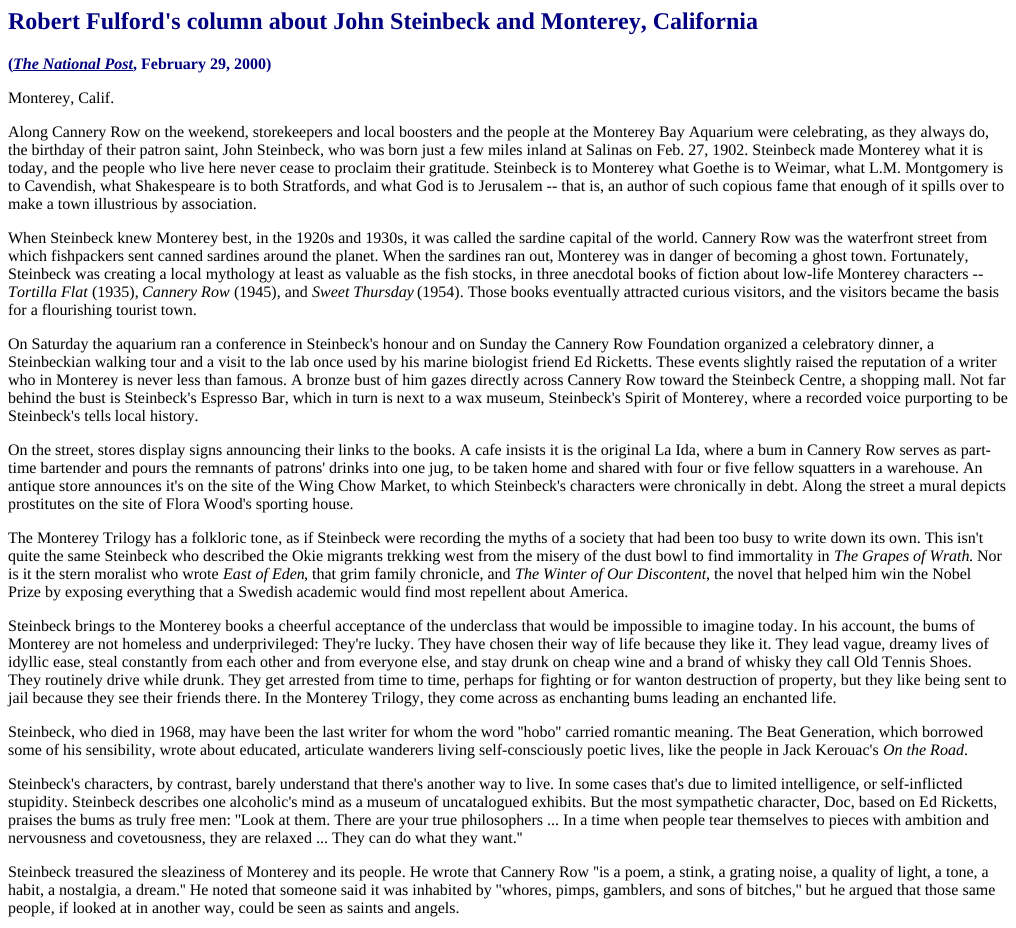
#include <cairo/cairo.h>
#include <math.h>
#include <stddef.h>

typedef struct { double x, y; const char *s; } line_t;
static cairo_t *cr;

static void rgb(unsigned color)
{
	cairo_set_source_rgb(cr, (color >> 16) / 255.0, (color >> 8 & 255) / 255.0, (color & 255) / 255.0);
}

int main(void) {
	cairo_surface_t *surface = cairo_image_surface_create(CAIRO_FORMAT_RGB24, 1016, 928);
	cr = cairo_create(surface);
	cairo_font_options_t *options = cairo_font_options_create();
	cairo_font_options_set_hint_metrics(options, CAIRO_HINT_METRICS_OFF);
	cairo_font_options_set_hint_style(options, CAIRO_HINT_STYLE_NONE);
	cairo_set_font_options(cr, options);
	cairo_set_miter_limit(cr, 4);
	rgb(0xffffff);
	cairo_paint(cr);
	rgb(0x000080);
	cairo_rectangle(cr, 13, 70, 120, 1);
	cairo_fill(cr);
	cairo_select_font_face(cr, "Liberation Serif", CAIRO_FONT_SLANT_NORMAL, CAIRO_FONT_WEIGHT_BOLD);
	cairo_set_font_size(cr, 24);
	cairo_move_to(cr, 8, 29);
	cairo_show_text(cr, "Robert Fulford's column about John Steinbeck and Monterey, California");
	cairo_set_font_size(cr, 16);
	cairo_move_to(cr, 8, 69);
	cairo_show_text(cr, "(");
	cairo_select_font_face(cr, "Liberation Serif", CAIRO_FONT_SLANT_ITALIC, CAIRO_FONT_WEIGHT_BOLD);
	cairo_move_to(cr, 13, 69);
	cairo_show_text(cr, "The National Post");
	cairo_select_font_face(cr, "Liberation Serif", CAIRO_FONT_SLANT_NORMAL, CAIRO_FONT_WEIGHT_BOLD);
	cairo_move_to(cr, 133, 69);
	cairo_show_text(cr, ", February 29, 2000)");
	cairo_select_font_face(cr, "Liberation Serif", CAIRO_FONT_SLANT_NORMAL, CAIRO_FONT_WEIGHT_NORMAL);
	rgb(0x000000);
	{
		static const line_t items[] = {
			{8, 103, "Monterey, Calif."},
			{8, 137, "Along Cannery Row on the weekend, storekeepers and local boosters and the people at the Monterey Bay Aquarium were celebrating, as they always do,"},
			{8, 155, "the birthday of their patron saint, John Steinbeck, who was born just a few miles inland at Salinas on Feb. 27, 1902. Steinbeck made Monterey what it is"},
			{8, 173, "today, and the people who live here never cease to proclaim their gratitude. Steinbeck is to Monterey what Goethe is to Weimar, what L.M. Montgomery is"},
			{8, 191, "to Cavendish, what Shakespeare is to both Stratfords, and what God is to Jerusalem -- that is, an author of such copious fame that enough of it spills over to"},
			{8, 209, "make a town illustrious by association."},
			{8, 243, "When Steinbeck knew Monterey best, in the 1920s and 1930s, it was called the sardine capital of the world. Cannery Row was the waterfront street from"},
			{8, 261, "which fishpackers sent canned sardines around the planet. When the sardines ran out, Monterey was in danger of becoming a ghost town. Fortunately,"},
			{8, 279, "Steinbeck was creating a local mythology at least as valuable as the fish stocks, in three anecdotal books of fiction about low-life Monterey characters --"},
		};
		for (size_t i = 0; i < sizeof items / sizeof *items; i++) {
			cairo_move_to(cr, items[i].x, items[i].y);
			cairo_show_text(cr, items[i].s);
		}
	}
	cairo_select_font_face(cr, "Liberation Serif", CAIRO_FONT_SLANT_ITALIC, CAIRO_FONT_WEIGHT_NORMAL);
	cairo_move_to(cr, 8, 297);
	cairo_show_text(cr, "Tortilla Flat");
	cairo_select_font_face(cr, "Liberation Serif", CAIRO_FONT_SLANT_NORMAL, CAIRO_FONT_WEIGHT_NORMAL);
	cairo_move_to(cr, 92, 297);
	cairo_show_text(cr, "(1935),");
	cairo_select_font_face(cr, "Liberation Serif", CAIRO_FONT_SLANT_ITALIC, CAIRO_FONT_WEIGHT_NORMAL);
	cairo_move_to(cr, 142, 297);
	cairo_show_text(cr, "Cannery Row");
	cairo_select_font_face(cr, "Liberation Serif", CAIRO_FONT_SLANT_NORMAL, CAIRO_FONT_WEIGHT_NORMAL);
	cairo_move_to(cr, 234, 297);
	cairo_show_text(cr, "(1945), and");
	cairo_select_font_face(cr, "Liberation Serif", CAIRO_FONT_SLANT_ITALIC, CAIRO_FONT_WEIGHT_NORMAL);
	cairo_move_to(cr, 312, 297);
	cairo_show_text(cr, "Sweet Thursday");
	cairo_select_font_face(cr, "Liberation Serif", CAIRO_FONT_SLANT_NORMAL, CAIRO_FONT_WEIGHT_NORMAL);
	{
		static const line_t items[] = {
			{417, 297, "(1954). Those books eventually attracted curious visitors, and the visitors became the basis"},
			{8, 315, "for a flourishing tourist town."},
			{8, 349, "On Saturday the aquarium ran a conference in Steinbeck's honour and on Sunday the Cannery Row Foundation organized a celebratory dinner, a"},
			{8, 367, "Steinbeckian walking tour and a visit to the lab once used by his marine biologist friend Ed Ricketts. These events slightly raised the reputation of a writer"},
			{8, 385, "who in Monterey is never less than famous. A bronze bust of him gazes directly across Cannery Row toward the Steinbeck Centre, a shopping mall. Not far"},
			{8, 403, "behind the bust is Steinbeck's Espresso Bar, which in turn is next to a wax museum, Steinbeck's Spirit of Monterey, where a recorded voice purporting to be"},
			{8, 421, "Steinbeck's tells local history."},
			{8, 455, "On the street, stores display signs announcing their links to the books. A cafe insists it is the original La Ida, where a bum in Cannery Row serves as part-"},
			{8, 473, "time bartender and pours the remnants of patrons' drinks into one jug, to be taken home and shared with four or five fellow squatters in a warehouse. An"},
			{8, 491, "antique store announces it's on the site of the Wing Chow Market, to which Steinbeck's characters were chronically in debt. Along the street a mural depicts"},
			{8, 509, "prostitutes on the site of Flora Wood's sporting house."},
			{8, 543, "The Monterey Trilogy has a folkloric tone, as if Steinbeck were recording the myths of a society that had been too busy to write down its own. This isn't"},
			{8, 561, "quite the same Steinbeck who described the Okie migrants trekking west from the misery of the dust bowl to find immortality in"},
		};
		for (size_t i = 0; i < sizeof items / sizeof *items; i++) {
			cairo_move_to(cr, items[i].x, items[i].y);
			cairo_show_text(cr, items[i].s);
		}
	}
	cairo_select_font_face(cr, "Liberation Serif", CAIRO_FONT_SLANT_ITALIC, CAIRO_FONT_WEIGHT_NORMAL);
	cairo_move_to(cr, 834, 561);
	cairo_show_text(cr, "The Grapes of Wrath");
	cairo_select_font_face(cr, "Liberation Serif", CAIRO_FONT_SLANT_NORMAL, CAIRO_FONT_WEIGHT_NORMAL);
	cairo_move_to(cr, 969, 561);
	cairo_show_text(cr, ". Nor");
	cairo_move_to(cr, 8, 579);
	cairo_show_text(cr, "is it the stern moralist who wrote");
	cairo_select_font_face(cr, "Liberation Serif", CAIRO_FONT_SLANT_ITALIC, CAIRO_FONT_WEIGHT_NORMAL);
	cairo_move_to(cr, 223, 579);
	cairo_show_text(cr, "East of Eden");
	cairo_select_font_face(cr, "Liberation Serif", CAIRO_FONT_SLANT_NORMAL, CAIRO_FONT_WEIGHT_NORMAL);
	cairo_move_to(cr, 304, 579);
	cairo_show_text(cr, ", that grim family chronicle, and");
	cairo_select_font_face(cr, "Liberation Serif", CAIRO_FONT_SLANT_ITALIC, CAIRO_FONT_WEIGHT_NORMAL);
	cairo_move_to(cr, 515, 579);
	cairo_show_text(cr, "The Winter of Our Discontent");
	cairo_select_font_face(cr, "Liberation Serif", CAIRO_FONT_SLANT_NORMAL, CAIRO_FONT_WEIGHT_NORMAL);
	{
		static const line_t items[] = {
			{706, 579, ", the novel that helped him win the Nobel"},
			{8, 597, "Prize by exposing everything that a Swedish academic would find most repellent about America."},
			{8, 631, "Steinbeck brings to the Monterey books a cheerful acceptance of the underclass that would be impossible to imagine today. In his account, the bums of"},
			{8, 649, "Monterey are not homeless and underprivileged: They're lucky. They have chosen their way of life because they like it. They lead vague, dreamy lives of"},
			{8, 667, "idyllic ease, steal constantly from each other and from everyone else, and stay drunk on cheap wine and a brand of whisky they call Old Tennis Shoes."},
			{8, 685, "They routinely drive while drunk. They get arrested from time to time, perhaps for fighting or for wanton destruction of property, but they like being sent to"},
			{8, 703, "jail because they see their friends there. In the Monterey Trilogy, they come across as enchanting bums leading an enchanted life."},
			{8, 737, "Steinbeck, who died in 1968, may have been the last writer for whom the word ''hobo'' carried romantic meaning. The Beat Generation, which borrowed"},
			{8, 755, "some of his sensibility, wrote about educated, articulate wanderers living self-consciously poetic lives, like the people in Jack Kerouac's"},
		};
		for (size_t i = 0; i < sizeof items / sizeof *items; i++) {
			cairo_move_to(cr, items[i].x, items[i].y);
			cairo_show_text(cr, items[i].s);
		}
	}
	cairo_select_font_face(cr, "Liberation Serif", CAIRO_FONT_SLANT_ITALIC, CAIRO_FONT_WEIGHT_NORMAL);
	cairo_move_to(cr, 883, 755);
	cairo_show_text(cr, "On the Road");
	cairo_select_font_face(cr, "Liberation Serif", CAIRO_FONT_SLANT_NORMAL, CAIRO_FONT_WEIGHT_NORMAL);
	{
		static const line_t items[] = {
			{964, 755, "."},
			{8, 789, "Steinbeck's characters, by contrast, barely understand that there's another way to live. In some cases that's due to limited intelligence, or self-inflicted"},
			{8, 807, "stupidity. Steinbeck describes one alcoholic's mind as a museum of uncatalogued exhibits. But the most sympathetic character, Doc, based on Ed Ricketts,"},
			{8, 825, "praises the bums as truly free men: ''Look at them. There are your true philosophers ... In a time when people tear themselves to pieces with ambition and"},
			{8, 843, "nervousness and covetousness, they are relaxed ... They can do what they want.''"},
			{8, 877, "Steinbeck treasured the sleaziness of Monterey and its people. He wrote that Cannery Row ''is a poem, a stink, a grating noise, a quality of light, a tone, a"},
			{8, 895, "habit, a nostalgia, a dream.'' He noted that someone said it was inhabited by ''whores, pimps, gamblers, and sons of bitches,'' but he argued that those same"},
			{8, 913, "people, if looked at in another way, could be seen as saints and angels."},
		};
		for (size_t i = 0; i < sizeof items / sizeof *items; i++) {
			cairo_move_to(cr, items[i].x, items[i].y);
			cairo_show_text(cr, items[i].s);
		}
	}
	cairo_surface_write_to_png(surface, "page.png");
	cairo_font_options_destroy(options);
	cairo_destroy(cr);
	cairo_surface_destroy(surface);
	return 0;
}
